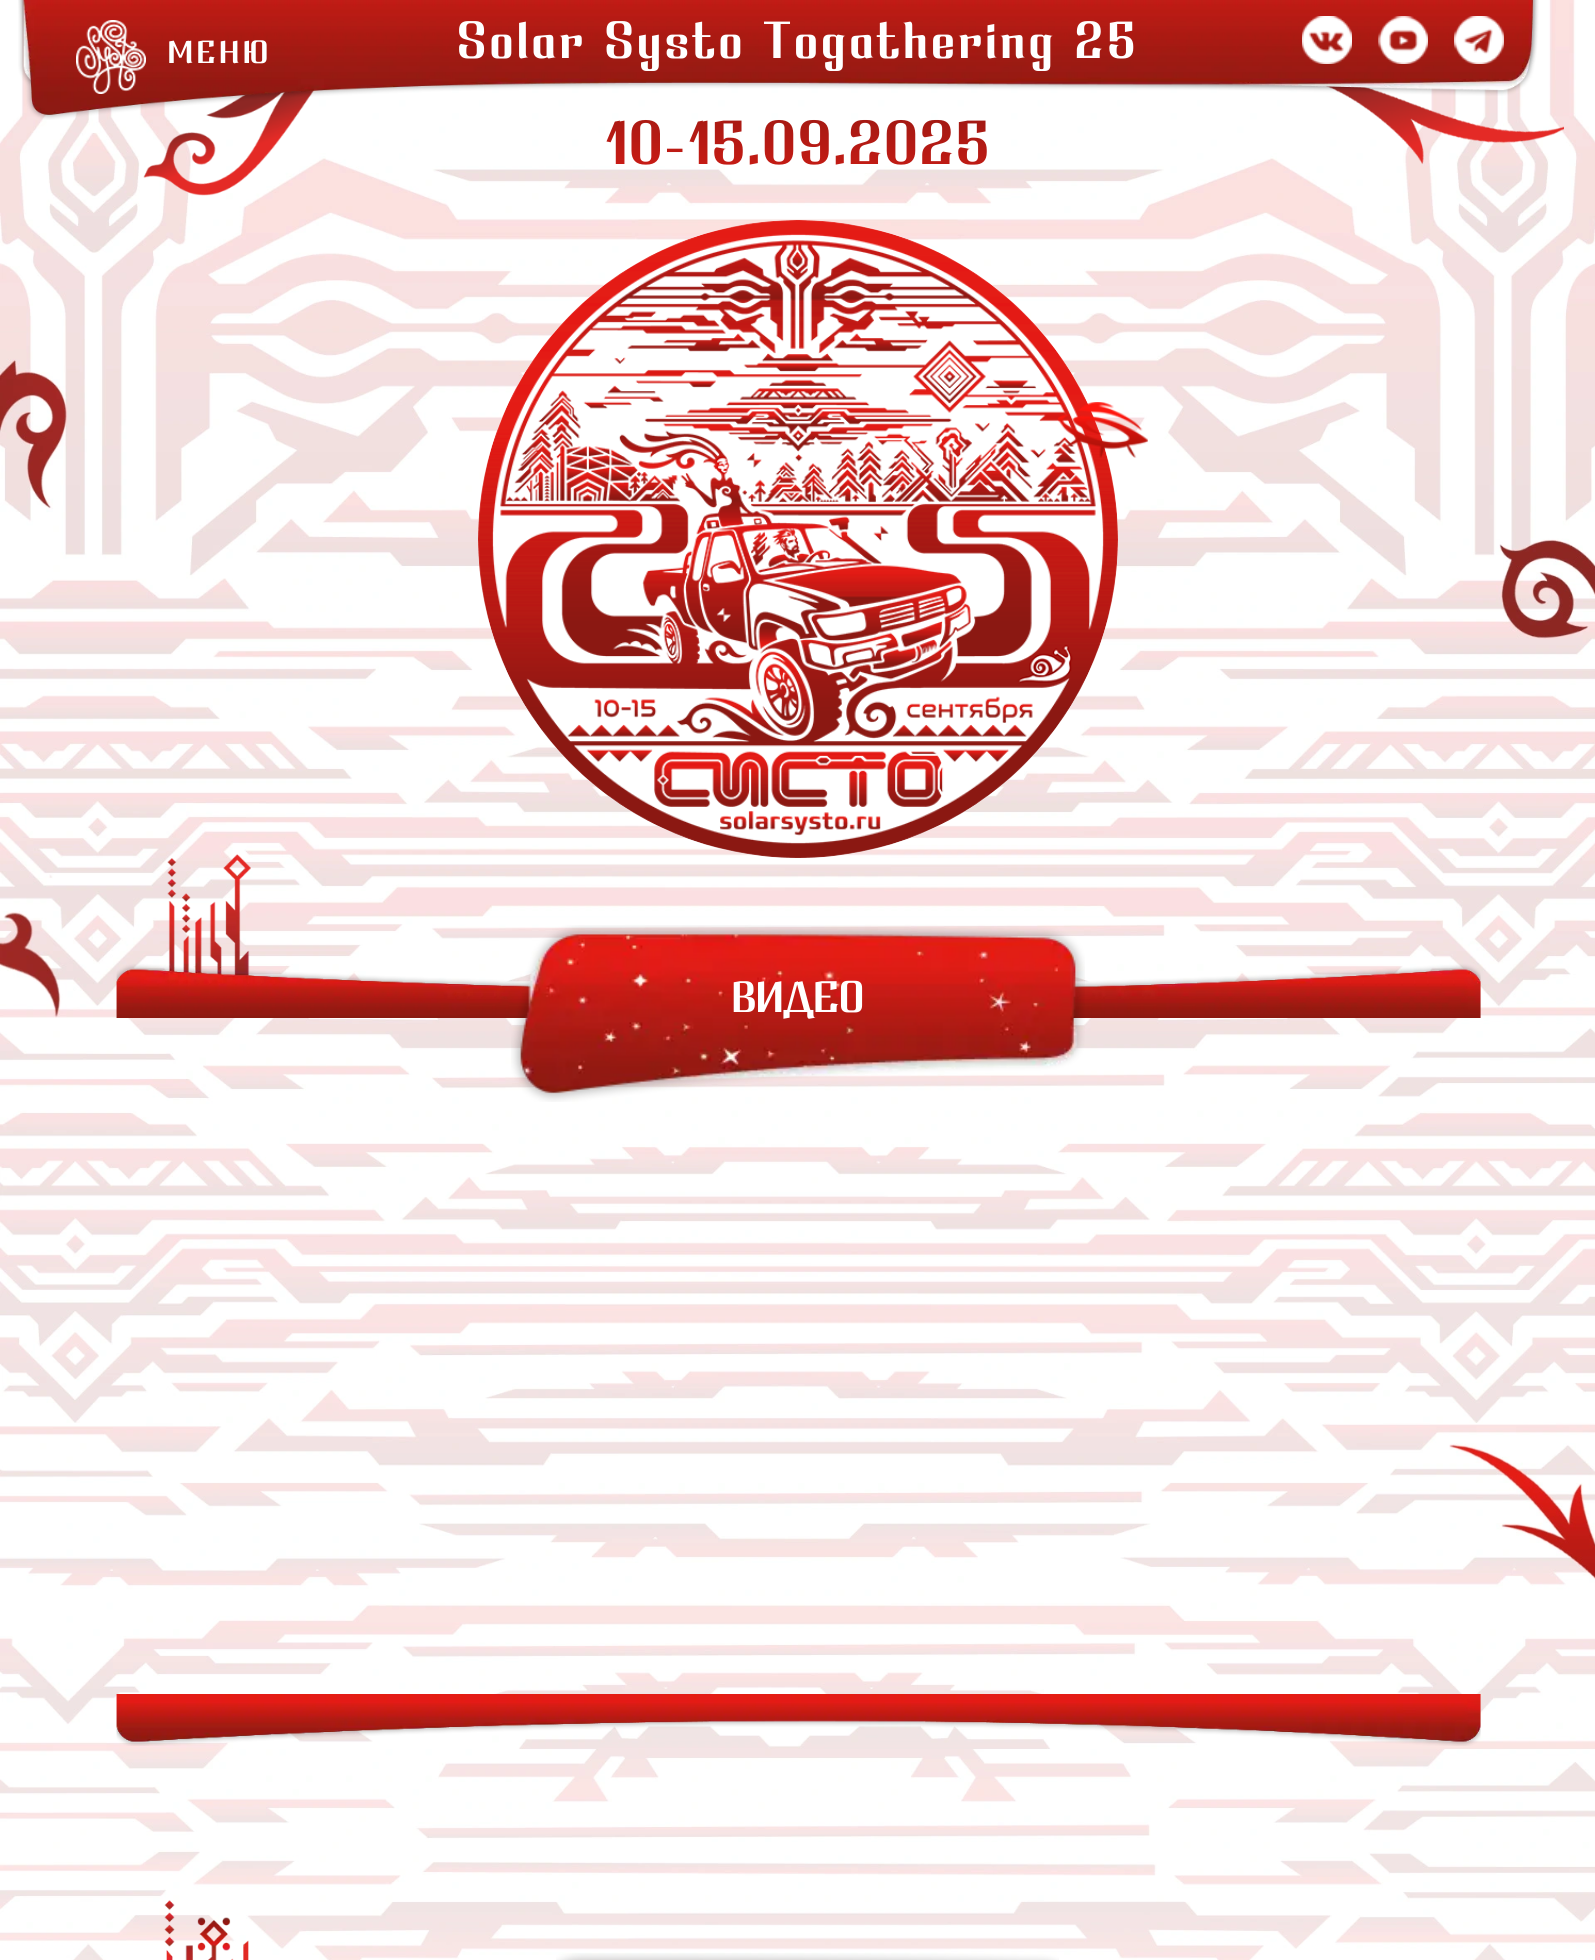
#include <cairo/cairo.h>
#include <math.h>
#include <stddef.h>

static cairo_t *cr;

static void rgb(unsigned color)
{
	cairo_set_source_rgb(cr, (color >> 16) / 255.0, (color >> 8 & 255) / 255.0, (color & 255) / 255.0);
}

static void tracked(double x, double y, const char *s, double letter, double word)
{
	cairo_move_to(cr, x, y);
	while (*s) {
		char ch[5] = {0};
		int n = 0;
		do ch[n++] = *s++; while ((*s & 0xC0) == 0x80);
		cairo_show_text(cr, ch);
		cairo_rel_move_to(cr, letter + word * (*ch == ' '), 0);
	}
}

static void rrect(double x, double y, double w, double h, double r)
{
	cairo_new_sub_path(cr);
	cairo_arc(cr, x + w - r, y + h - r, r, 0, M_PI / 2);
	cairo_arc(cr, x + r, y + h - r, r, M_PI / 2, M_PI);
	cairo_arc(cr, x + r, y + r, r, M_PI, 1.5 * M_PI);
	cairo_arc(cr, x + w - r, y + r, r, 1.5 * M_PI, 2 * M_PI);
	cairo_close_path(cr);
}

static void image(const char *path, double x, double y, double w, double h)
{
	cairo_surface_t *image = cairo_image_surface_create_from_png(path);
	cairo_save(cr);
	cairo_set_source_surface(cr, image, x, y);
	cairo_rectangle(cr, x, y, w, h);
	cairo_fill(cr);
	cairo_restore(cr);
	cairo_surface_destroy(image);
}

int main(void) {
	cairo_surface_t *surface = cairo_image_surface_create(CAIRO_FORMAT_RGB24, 1595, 1960);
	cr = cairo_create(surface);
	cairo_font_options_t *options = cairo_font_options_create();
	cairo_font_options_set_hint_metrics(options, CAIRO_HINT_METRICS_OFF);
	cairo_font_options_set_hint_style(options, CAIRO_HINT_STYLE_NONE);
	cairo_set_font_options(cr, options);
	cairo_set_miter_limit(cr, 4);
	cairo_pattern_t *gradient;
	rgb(0xffffff);
	cairo_paint(cr);
	image("img/1.png", 0, 0, 1595, 1960);
	rgb(0xffffff);
	rrect(478, 220, 640, 638, 319);
	cairo_fill(cr);
	image("img/8.png", 478, 220, 640, 638);
	image("img/9.png", 1058, 402, 90, 56);
	image("img/10.png", 116, 854, 1365, 164);
	image("img/11.png", 116, 1694, 1365, 52);
	image("img/12.png", 511, 925, 574, 177);
	image("img/13.png", 164, 1900, 85, 60);
	image("img/14.png", 556, 1953, 503, 7);
	cairo_select_font_face(cr, "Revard", CAIRO_FONT_SLANT_NORMAL, CAIRO_FONT_WEIGHT_NORMAL);
	cairo_set_font_size(cr, 62);
	gradient = cairo_pattern_create_linear(795, 218, 801, 82);
	cairo_pattern_add_color_stop_rgba(gradient, 0, 0.894, 0.114, 0.086, 1);
	cairo_pattern_add_color_stop_rgba(gradient, 1, 0.565, 0.094, 0.071, 1);
	cairo_set_source(cr, gradient);
	cairo_pattern_destroy(gradient);
	tracked(604, 164, "10-15.09.2025", 2, 0);
	image("img/7.png", 143, 86, 1421, 110);
	image("img/2.png", 18, 0, 1521, 120);
	image("img/6.png", 1454, 16, 50, 48);
	image("img/5.png", 1378, 16, 50, 48);
	image("img/4.png", 1302, 16, 50, 48);
	image("img/3.png", 76, 20, 70, 74);
	cairo_set_font_size(cr, 32);
	rgb(0xffffff);
	tracked(168, 63, "МЕНЮ", 4, 0);
	cairo_set_font_size(cr, 52);
	tracked(457, 58, "Solar Systo Togathering 25", 4, 0);
	cairo_set_font_size(cr, 44);
	cairo_move_to(cr, 732, 1012);
	cairo_show_text(cr, "ВИДЕО");
	cairo_surface_write_to_png(surface, "page.png");
	cairo_font_options_destroy(options);
	cairo_destroy(cr);
	cairo_surface_destroy(surface);
	return 0;
}
